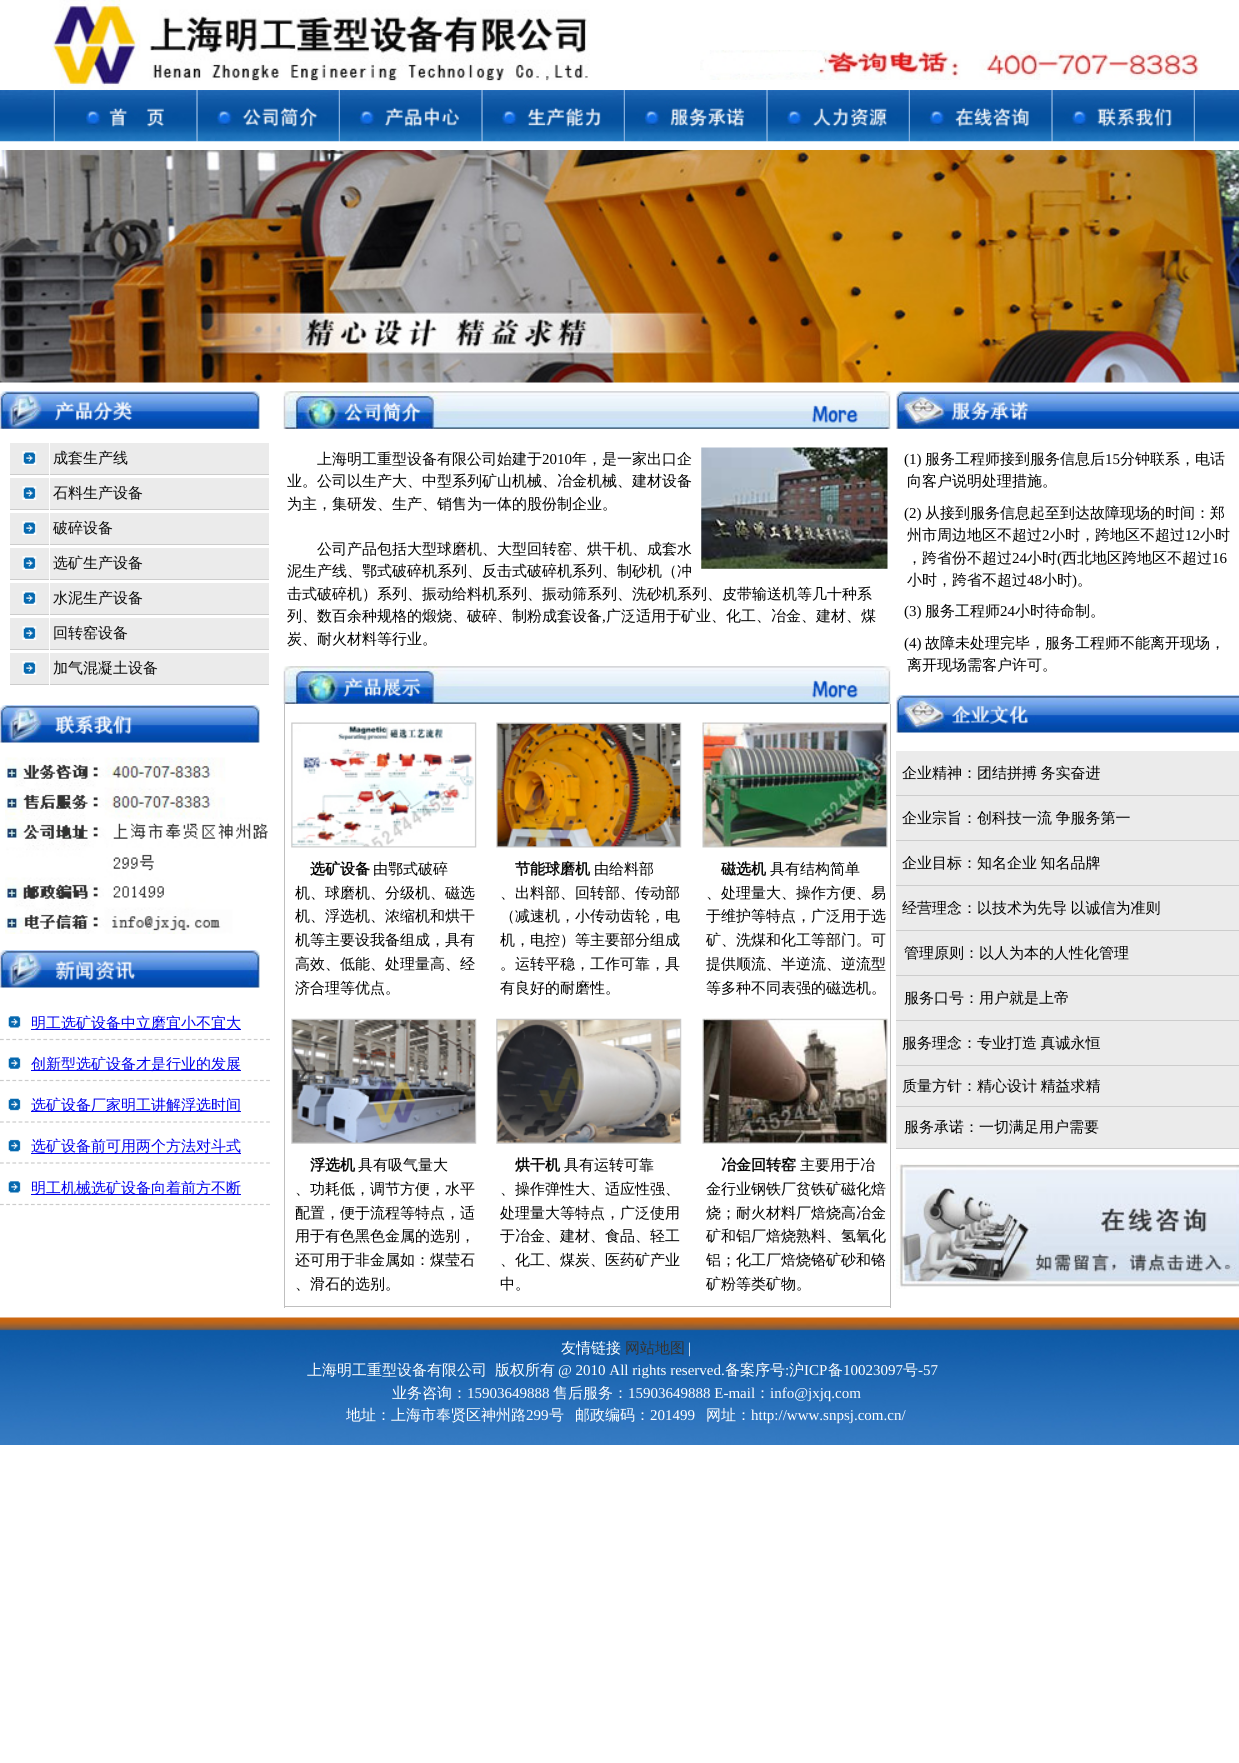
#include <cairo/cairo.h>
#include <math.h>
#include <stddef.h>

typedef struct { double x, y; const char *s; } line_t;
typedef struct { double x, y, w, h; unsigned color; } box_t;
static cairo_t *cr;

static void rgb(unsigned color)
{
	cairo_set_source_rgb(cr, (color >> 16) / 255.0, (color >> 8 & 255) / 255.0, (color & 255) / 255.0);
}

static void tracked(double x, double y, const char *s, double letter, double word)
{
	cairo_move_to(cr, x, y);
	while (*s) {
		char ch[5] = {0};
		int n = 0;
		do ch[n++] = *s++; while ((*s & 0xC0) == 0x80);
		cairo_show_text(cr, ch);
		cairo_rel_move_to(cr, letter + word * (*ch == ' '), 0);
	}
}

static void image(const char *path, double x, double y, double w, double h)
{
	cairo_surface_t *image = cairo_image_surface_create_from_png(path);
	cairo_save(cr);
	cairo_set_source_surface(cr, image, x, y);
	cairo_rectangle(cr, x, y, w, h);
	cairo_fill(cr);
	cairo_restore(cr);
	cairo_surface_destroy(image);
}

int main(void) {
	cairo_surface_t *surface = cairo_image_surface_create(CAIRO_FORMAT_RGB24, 1239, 1763);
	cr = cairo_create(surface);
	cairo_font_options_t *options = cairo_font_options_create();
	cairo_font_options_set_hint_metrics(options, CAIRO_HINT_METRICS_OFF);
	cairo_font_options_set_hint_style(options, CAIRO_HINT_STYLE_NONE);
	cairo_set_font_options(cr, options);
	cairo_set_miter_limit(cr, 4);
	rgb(0xffffff);
	cairo_paint(cr);
	image("img/1.png", 50, 0, 540, 90);
	image("img/2.png", 700, 50, 500, 30);
	image("img/3.png", 0, 90, 55, 52);
	image("img/4.png", 55, 90, 143, 52);
	image("img/5.png", 197, 90, 143, 52);
	image("img/6.png", 340, 90, 143, 52);
	image("img/7.png", 482, 90, 143, 52);
	image("img/8.png", 625, 90, 143, 52);
	image("img/9.png", 767, 90, 143, 52);
	image("img/10.png", 910, 90, 143, 52);
	image("img/11.png", 1052, 90, 143, 52);
	image("img/12.png", 1195, 90, 44, 52);
	image("img/13.png", 0, 150, 1239, 233);
	image("img/14.png", 0, 391, 260, 38);
	rgb(0xebebeb);
	cairo_rectangle(cr, 10, 443, 39, 31);
	cairo_fill(cr);
	rgb(0xcccccc);
	cairo_rectangle(cr, 10, 474, 39, 1);
	cairo_fill(cr);
	image("img/15.png", 22, 451, 15, 14);
	{
		static const box_t items[] = {
			{50, 443, 219, 31, 0xebebeb},
			{50, 474, 219, 1, 0xcccccc},
			{10, 478, 39, 31, 0xebebeb},
			{10, 509, 39, 1, 0xcccccc},
		};
		for (size_t i = 0; i < sizeof items / sizeof *items; i++) {
			rgb(items[i].color);
			cairo_rectangle(cr, items[i].x, items[i].y, items[i].w, items[i].h);
			cairo_fill(cr);
		}
	}
	image("img/15.png", 22, 486, 15, 14);
	{
		static const box_t items[] = {
			{50, 478, 219, 31, 0xebebeb},
			{50, 509, 219, 1, 0xcccccc},
			{10, 513, 39, 31, 0xebebeb},
			{10, 544, 39, 1, 0xcccccc},
		};
		for (size_t i = 0; i < sizeof items / sizeof *items; i++) {
			rgb(items[i].color);
			cairo_rectangle(cr, items[i].x, items[i].y, items[i].w, items[i].h);
			cairo_fill(cr);
		}
	}
	image("img/15.png", 22, 521, 15, 14);
	{
		static const box_t items[] = {
			{50, 513, 219, 31, 0xebebeb},
			{50, 544, 219, 1, 0xcccccc},
			{10, 548, 39, 31, 0xebebeb},
			{10, 579, 39, 1, 0xcccccc},
		};
		for (size_t i = 0; i < sizeof items / sizeof *items; i++) {
			rgb(items[i].color);
			cairo_rectangle(cr, items[i].x, items[i].y, items[i].w, items[i].h);
			cairo_fill(cr);
		}
	}
	image("img/15.png", 22, 556, 15, 14);
	{
		static const box_t items[] = {
			{50, 548, 219, 31, 0xebebeb},
			{50, 579, 219, 1, 0xcccccc},
			{10, 583, 39, 31, 0xebebeb},
			{10, 614, 39, 1, 0xcccccc},
		};
		for (size_t i = 0; i < sizeof items / sizeof *items; i++) {
			rgb(items[i].color);
			cairo_rectangle(cr, items[i].x, items[i].y, items[i].w, items[i].h);
			cairo_fill(cr);
		}
	}
	image("img/15.png", 22, 591, 15, 14);
	{
		static const box_t items[] = {
			{50, 583, 219, 31, 0xebebeb},
			{50, 614, 219, 1, 0xcccccc},
			{10, 618, 39, 31, 0xebebeb},
			{10, 649, 39, 1, 0xcccccc},
		};
		for (size_t i = 0; i < sizeof items / sizeof *items; i++) {
			rgb(items[i].color);
			cairo_rectangle(cr, items[i].x, items[i].y, items[i].w, items[i].h);
			cairo_fill(cr);
		}
	}
	image("img/15.png", 22, 626, 15, 14);
	{
		static const box_t items[] = {
			{50, 618, 219, 31, 0xebebeb},
			{50, 649, 219, 1, 0xcccccc},
			{10, 653, 39, 31, 0xebebeb},
			{10, 684, 39, 1, 0xcccccc},
		};
		for (size_t i = 0; i < sizeof items / sizeof *items; i++) {
			rgb(items[i].color);
			cairo_rectangle(cr, items[i].x, items[i].y, items[i].w, items[i].h);
			cairo_fill(cr);
		}
	}
	image("img/15.png", 22, 661, 15, 14);
	rgb(0xebebeb);
	cairo_rectangle(cr, 50, 653, 219, 31);
	cairo_fill(cr);
	rgb(0xcccccc);
	cairo_rectangle(cr, 50, 684, 219, 1);
	cairo_fill(cr);
	image("img/16.png", 0, 705, 260, 38);
	image("img/17.png", 5, 757, 263, 177);
	image("img/18.png", 0, 950, 260, 38);
	image("img/19.png", 8, 1016, 13, 12);
	cairo_new_path(cr);
	cairo_move_to(cr, 0, 1039.5);
	cairo_line_to(cr, 270, 1039.5);
	cairo_set_line_width(cr, 1.2);
	cairo_set_dash(cr, (double[]){3.75, 2.44}, 2, 0);
	cairo_stroke(cr);
	rgb(0x0000ee);
	cairo_rectangle(cr, 31, 1029, 210, 1);
	cairo_fill(cr);
	image("img/20.png", 8, 1057, 13, 12);
	cairo_new_path(cr);
	cairo_move_to(cr, 0, 1080.5);
	cairo_line_to(cr, 270, 1080.5);
	rgb(0xcccccc);
	cairo_stroke(cr);
	rgb(0x0000ee);
	cairo_rectangle(cr, 31, 1070, 210, 1);
	cairo_fill(cr);
	image("img/21.png", 8, 1098, 13, 13);
	cairo_new_path(cr);
	cairo_move_to(cr, 0, 1122);
	cairo_line_to(cr, 270, 1122);
	rgb(0xcccccc);
	cairo_stroke(cr);
	rgb(0x0000ee);
	cairo_rectangle(cr, 31, 1111, 210, 1);
	cairo_fill(cr);
	image("img/22.png", 8, 1139, 13, 13);
	cairo_new_path(cr);
	cairo_move_to(cr, 0, 1163);
	cairo_line_to(cr, 270, 1163);
	rgb(0xcccccc);
	cairo_stroke(cr);
	rgb(0x0000ee);
	cairo_rectangle(cr, 31, 1153, 210, 1);
	cairo_fill(cr);
	image("img/19.png", 8, 1181, 13, 12);
	cairo_new_path(cr);
	cairo_move_to(cr, 0, 1204.5);
	cairo_line_to(cr, 270, 1204.5);
	rgb(0xcccccc);
	cairo_stroke(cr);
	rgb(0x0000ee);
	cairo_rectangle(cr, 31, 1194, 210, 1);
	cairo_fill(cr);
	image("img/23.png", 283, 391, 608, 38);
	image("img/24.png", 701, 447, 187, 122);
	image("img/25.png", 283, 666, 608, 38);
	{
		static const box_t items[] = {
			{890, 704, 1, 604, 0xbfbfbf},
			{284, 1306, 607, 1, 0xbfbfbf},
			{284, 704, 1, 604, 0xbfbfbf},
		};
		for (size_t i = 0; i < sizeof items / sizeof *items; i++) {
			rgb(items[i].color);
			cairo_rectangle(cr, items[i].x, items[i].y, items[i].w, items[i].h);
			cairo_fill(cr);
		}
	}
	image("img/26.png", 291, 722, 186, 126);
	image("img/27.png", 496, 722, 186, 126);
	image("img/28.png", 702, 722, 186, 126);
	image("img/29.png", 291, 1018, 186, 126);
	image("img/30.png", 496, 1018, 186, 126);
	image("img/31.png", 702, 1018, 186, 126);
	image("img/32.png", 896, 391, 343, 38);
	image("img/33.png", 896, 695, 343, 38);
	{
		static const box_t items[] = {
			{896, 751, 343, 44, 0xebebeb},
			{896, 795, 343, 1, 0xcccccc},
			{896, 796, 343, 44, 0xebebeb},
			{896, 840, 343, 1, 0xcccccc},
			{896, 841, 343, 44, 0xebebeb},
			{896, 885, 343, 1, 0xcccccc},
			{896, 886, 343, 44, 0xebebeb},
			{896, 930, 343, 1, 0xcccccc},
			{896, 931, 343, 44, 0xebebeb},
			{896, 975, 343, 1, 0xcccccc},
			{896, 976, 343, 44, 0xebebeb},
			{896, 1020, 343, 1, 0xcccccc},
			{896, 1021, 343, 44, 0xebebeb},
			{896, 1065, 343, 1, 0xcccccc},
			{896, 1066, 343, 82, 0xebebeb},
			{896, 1106, 343, 1, 0xcccccc},
			{896, 1148, 343, 1, 0xcccccc},
		};
		for (size_t i = 0; i < sizeof items / sizeof *items; i++) {
			rgb(items[i].color);
			cairo_rectangle(cr, items[i].x, items[i].y, items[i].w, items[i].h);
			cairo_fill(cr);
		}
	}
	image("img/34.png", 896, 1164, 343, 125);
	image("img/35.png", 0, 1317, 1239, 128);
	cairo_select_font_face(cr, "WenQuanYi Zen Hei Medium", CAIRO_FONT_SLANT_NORMAL, CAIRO_FONT_WEIGHT_NORMAL);
	cairo_set_font_size(cr, 15);
	rgb(0x090909);
	{
		static const line_t items[] = {
			{53, 463, "成套生产线"},
			{53, 498, "石料生产设备"},
			{53, 533, "破碎设备"},
			{53, 568, "选矿生产设备"},
			{53, 603, "水泥生产设备"},
			{53, 638, "回转窑设备"},
			{53, 673, "加气混凝土设备"},
		};
		for (size_t i = 0; i < sizeof items / sizeof *items; i++) {
			cairo_move_to(cr, items[i].x, items[i].y);
			cairo_show_text(cr, items[i].s);
		}
	}
	rgb(0x0000ee);
	{
		static const line_t items[] = {
			{31, 1028, "明工选矿设备中立磨宜小不宜大"},
			{31, 1069, "创新型选矿设备才是行业的发展"},
			{31, 1110, "选矿设备厂家明工讲解浮选时间"},
			{31, 1151, "选矿设备前可用两个方法对斗式"},
			{31, 1193, "明工机械选矿设备向着前方不断"},
		};
		for (size_t i = 0; i < sizeof items / sizeof *items; i++) {
			cairo_move_to(cr, items[i].x, items[i].y);
			cairo_show_text(cr, items[i].s);
		}
	}
	rgb(0x000000);
	cairo_move_to(cr, 317, 464);
	cairo_show_text(cr, "上海明工重型设备有限公司始建于");
	cairo_select_font_face(cr, "Liberation Serif", CAIRO_FONT_SLANT_NORMAL, CAIRO_FONT_WEIGHT_NORMAL);
	cairo_move_to(cr, 542, 464);
	cairo_show_text(cr, "2010");
	cairo_select_font_face(cr, "WenQuanYi Zen Hei Medium", CAIRO_FONT_SLANT_NORMAL, CAIRO_FONT_WEIGHT_NORMAL);
	{
		static const line_t items[] = {
			{572, 464, "年，是一家出口企"},
			{287, 486, "业。公司以生产大、中型系列矿山机械、冶金机械、建材设备"},
			{287, 509, "为主，集研发、生产、销售为一体的股份制企业。"},
			{317, 554, "公司产品包括大型球磨机、大型回转窑、烘干机、成套水"},
			{287, 576, "泥生产线、鄂式破碎机系列、反击式破碎机系列、制砂机（冲"},
			{287, 599, "击式破碎机）系列、振动给料机系列、振动筛系列、洗砂机系列、皮带输送机等几十种系"},
			{287, 621, "列、数百余种规格的煅烧、破碎、制粉成套设备"},
		};
		for (size_t i = 0; i < sizeof items / sizeof *items; i++) {
			cairo_move_to(cr, items[i].x, items[i].y);
			cairo_show_text(cr, items[i].s);
		}
	}
	cairo_select_font_face(cr, "Liberation Serif", CAIRO_FONT_SLANT_NORMAL, CAIRO_FONT_WEIGHT_NORMAL);
	cairo_move_to(cr, 602, 621);
	cairo_show_text(cr, ",");
	cairo_select_font_face(cr, "WenQuanYi Zen Hei Medium", CAIRO_FONT_SLANT_NORMAL, CAIRO_FONT_WEIGHT_NORMAL);
	cairo_move_to(cr, 606, 621);
	cairo_show_text(cr, "广泛适用于矿业、化工、冶金、建材、煤");
	cairo_move_to(cr, 287, 644);
	cairo_show_text(cr, "炭、耐火材料等行业。");
	cairo_select_font_face(cr, "WenQuanYi Zen Hei", CAIRO_FONT_SLANT_NORMAL, CAIRO_FONT_WEIGHT_BOLD);
	rgb(0x090909);
	cairo_move_to(cr, 310, 874);
	cairo_show_text(cr, "选矿设备");
	cairo_select_font_face(cr, "WenQuanYi Zen Hei Medium", CAIRO_FONT_SLANT_NORMAL, CAIRO_FONT_WEIGHT_NORMAL);
	rgb(0x000000);
	{
		static const line_t items[] = {
			{373, 874, "由鄂式破碎"},
			{295, 898, "机、球磨机、分级机、磁选"},
			{295, 921, "机、浮选机、浓缩机和烘干"},
			{295, 945, "机等主要设我备组成，具有"},
			{295, 969, "高效、低能、处理量高、经"},
			{295, 993, "济合理等优点。"},
		};
		for (size_t i = 0; i < sizeof items / sizeof *items; i++) {
			cairo_move_to(cr, items[i].x, items[i].y);
			cairo_show_text(cr, items[i].s);
		}
	}
	cairo_select_font_face(cr, "WenQuanYi Zen Hei", CAIRO_FONT_SLANT_NORMAL, CAIRO_FONT_WEIGHT_BOLD);
	rgb(0x090909);
	cairo_move_to(cr, 515, 874);
	cairo_show_text(cr, "节能球磨机");
	cairo_select_font_face(cr, "WenQuanYi Zen Hei Medium", CAIRO_FONT_SLANT_NORMAL, CAIRO_FONT_WEIGHT_NORMAL);
	rgb(0x000000);
	{
		static const line_t items[] = {
			{594, 874, "由给料部"},
			{500, 898, "、出料部、回转部、传动部"},
			{500, 921, "（减速机，小传动齿轮，电"},
			{500, 945, "机，电控）等主要部分组成"},
			{500, 969, "。运转平稳，工作可靠，具"},
			{500, 993, "有良好的耐磨性。"},
		};
		for (size_t i = 0; i < sizeof items / sizeof *items; i++) {
			cairo_move_to(cr, items[i].x, items[i].y);
			cairo_show_text(cr, items[i].s);
		}
	}
	cairo_select_font_face(cr, "WenQuanYi Zen Hei", CAIRO_FONT_SLANT_NORMAL, CAIRO_FONT_WEIGHT_BOLD);
	rgb(0x090909);
	cairo_move_to(cr, 721, 874);
	cairo_show_text(cr, "磁选机");
	cairo_select_font_face(cr, "WenQuanYi Zen Hei Medium", CAIRO_FONT_SLANT_NORMAL, CAIRO_FONT_WEIGHT_NORMAL);
	rgb(0x000000);
	{
		static const line_t items[] = {
			{770, 874, "具有结构简单"},
			{706, 898, "、处理量大、操作方便、易"},
			{706, 921, "于维护等特点，广泛用于选"},
			{706, 945, "矿、洗煤和化工等部门。可"},
			{706, 969, "提供顺流、半逆流、逆流型"},
			{706, 993, "等多种不同表强的磁选机。"},
		};
		for (size_t i = 0; i < sizeof items / sizeof *items; i++) {
			cairo_move_to(cr, items[i].x, items[i].y);
			cairo_show_text(cr, items[i].s);
		}
	}
	cairo_select_font_face(cr, "WenQuanYi Zen Hei", CAIRO_FONT_SLANT_NORMAL, CAIRO_FONT_WEIGHT_BOLD);
	rgb(0x090909);
	cairo_move_to(cr, 310, 1170);
	cairo_show_text(cr, "浮选机");
	cairo_select_font_face(cr, "WenQuanYi Zen Hei Medium", CAIRO_FONT_SLANT_NORMAL, CAIRO_FONT_WEIGHT_NORMAL);
	rgb(0x000000);
	{
		static const line_t items[] = {
			{358, 1170, "具有吸气量大"},
			{295, 1194, "、功耗低，调节方便，水平"},
			{295, 1218, "配置，便于流程等特点，适"},
			{295, 1241, "用于有色黑色金属的选别，"},
			{295, 1265, "还可用于非金属如：煤莹石"},
			{295, 1289, "、滑石的选别。"},
		};
		for (size_t i = 0; i < sizeof items / sizeof *items; i++) {
			cairo_move_to(cr, items[i].x, items[i].y);
			cairo_show_text(cr, items[i].s);
		}
	}
	cairo_select_font_face(cr, "WenQuanYi Zen Hei", CAIRO_FONT_SLANT_NORMAL, CAIRO_FONT_WEIGHT_BOLD);
	rgb(0x090909);
	cairo_move_to(cr, 515, 1170);
	cairo_show_text(cr, "烘干机");
	cairo_select_font_face(cr, "WenQuanYi Zen Hei Medium", CAIRO_FONT_SLANT_NORMAL, CAIRO_FONT_WEIGHT_NORMAL);
	rgb(0x000000);
	{
		static const line_t items[] = {
			{564, 1170, "具有运转可靠"},
			{500, 1194, "、操作弹性大、适应性强、"},
			{500, 1218, "处理量大等特点，广泛使用"},
			{500, 1241, "于冶金、建材、食品、轻工"},
			{500, 1265, "、化工、煤炭、医药矿产业"},
			{500, 1289, "中。"},
		};
		for (size_t i = 0; i < sizeof items / sizeof *items; i++) {
			cairo_move_to(cr, items[i].x, items[i].y);
			cairo_show_text(cr, items[i].s);
		}
	}
	cairo_select_font_face(cr, "WenQuanYi Zen Hei", CAIRO_FONT_SLANT_NORMAL, CAIRO_FONT_WEIGHT_BOLD);
	rgb(0x090909);
	cairo_move_to(cr, 721, 1170);
	cairo_show_text(cr, "冶金回转窑");
	cairo_select_font_face(cr, "WenQuanYi Zen Hei Medium", CAIRO_FONT_SLANT_NORMAL, CAIRO_FONT_WEIGHT_NORMAL);
	rgb(0x000000);
	{
		static const line_t items[] = {
			{800, 1170, "主要用于冶"},
			{706, 1194, "金行业钢铁厂贫铁矿磁化焙"},
			{706, 1218, "烧；耐火材料厂焙烧高冶金"},
			{706, 1241, "矿和铝厂焙烧熟料、氢氧化"},
			{706, 1265, "铝；化工厂焙烧铬矿砂和铬"},
			{706, 1289, "矿粉等类矿物。"},
		};
		for (size_t i = 0; i < sizeof items / sizeof *items; i++) {
			cairo_move_to(cr, items[i].x, items[i].y);
			cairo_show_text(cr, items[i].s);
		}
	}
	cairo_select_font_face(cr, "Liberation Serif", CAIRO_FONT_SLANT_NORMAL, CAIRO_FONT_WEIGHT_NORMAL);
	cairo_move_to(cr, 904, 464);
	cairo_show_text(cr, "(1)");
	cairo_select_font_face(cr, "WenQuanYi Zen Hei Medium", CAIRO_FONT_SLANT_NORMAL, CAIRO_FONT_WEIGHT_NORMAL);
	cairo_move_to(cr, 925, 464);
	cairo_show_text(cr, "服务工程师接到服务信息后");
	cairo_select_font_face(cr, "Liberation Serif", CAIRO_FONT_SLANT_NORMAL, CAIRO_FONT_WEIGHT_NORMAL);
	cairo_move_to(cr, 1105, 464);
	cairo_show_text(cr, "15");
	cairo_select_font_face(cr, "WenQuanYi Zen Hei Medium", CAIRO_FONT_SLANT_NORMAL, CAIRO_FONT_WEIGHT_NORMAL);
	cairo_move_to(cr, 1120, 464);
	cairo_show_text(cr, "分钟联系，电话");
	cairo_move_to(cr, 907, 486);
	cairo_show_text(cr, "向客户说明处理措施。");
	cairo_select_font_face(cr, "Liberation Serif", CAIRO_FONT_SLANT_NORMAL, CAIRO_FONT_WEIGHT_NORMAL);
	cairo_move_to(cr, 904, 518);
	cairo_show_text(cr, "(2)");
	cairo_select_font_face(cr, "WenQuanYi Zen Hei Medium", CAIRO_FONT_SLANT_NORMAL, CAIRO_FONT_WEIGHT_NORMAL);
	cairo_move_to(cr, 925, 518);
	cairo_show_text(cr, "从接到服务信息起至到达故障现场的时间：郑");
	cairo_move_to(cr, 907, 540);
	cairo_show_text(cr, "州市周边地区不超过");
	cairo_select_font_face(cr, "Liberation Serif", CAIRO_FONT_SLANT_NORMAL, CAIRO_FONT_WEIGHT_NORMAL);
	cairo_move_to(cr, 1042, 540);
	cairo_show_text(cr, "2");
	cairo_select_font_face(cr, "WenQuanYi Zen Hei Medium", CAIRO_FONT_SLANT_NORMAL, CAIRO_FONT_WEIGHT_NORMAL);
	cairo_move_to(cr, 1050, 540);
	cairo_show_text(cr, "小时，跨地区不超过");
	cairo_select_font_face(cr, "Liberation Serif", CAIRO_FONT_SLANT_NORMAL, CAIRO_FONT_WEIGHT_NORMAL);
	cairo_move_to(cr, 1185, 540);
	cairo_show_text(cr, "12");
	cairo_select_font_face(cr, "WenQuanYi Zen Hei Medium", CAIRO_FONT_SLANT_NORMAL, CAIRO_FONT_WEIGHT_NORMAL);
	cairo_move_to(cr, 1200, 540);
	cairo_show_text(cr, "小时");
	cairo_move_to(cr, 907, 563);
	cairo_show_text(cr, "，跨省份不超过");
	cairo_select_font_face(cr, "Liberation Serif", CAIRO_FONT_SLANT_NORMAL, CAIRO_FONT_WEIGHT_NORMAL);
	cairo_move_to(cr, 1012, 563);
	cairo_show_text(cr, "24");
	cairo_select_font_face(cr, "WenQuanYi Zen Hei Medium", CAIRO_FONT_SLANT_NORMAL, CAIRO_FONT_WEIGHT_NORMAL);
	cairo_move_to(cr, 1027, 563);
	cairo_show_text(cr, "小时");
	cairo_select_font_face(cr, "Liberation Serif", CAIRO_FONT_SLANT_NORMAL, CAIRO_FONT_WEIGHT_NORMAL);
	cairo_move_to(cr, 1057, 563);
	cairo_show_text(cr, "(");
	cairo_select_font_face(cr, "WenQuanYi Zen Hei Medium", CAIRO_FONT_SLANT_NORMAL, CAIRO_FONT_WEIGHT_NORMAL);
	cairo_move_to(cr, 1062, 563);
	cairo_show_text(cr, "西北地区跨地区不超过");
	cairo_select_font_face(cr, "Liberation Serif", CAIRO_FONT_SLANT_NORMAL, CAIRO_FONT_WEIGHT_NORMAL);
	cairo_move_to(cr, 1212, 563);
	cairo_show_text(cr, "16");
	cairo_select_font_face(cr, "WenQuanYi Zen Hei Medium", CAIRO_FONT_SLANT_NORMAL, CAIRO_FONT_WEIGHT_NORMAL);
	cairo_move_to(cr, 907, 585);
	cairo_show_text(cr, "小时，跨省不超过");
	cairo_select_font_face(cr, "Liberation Serif", CAIRO_FONT_SLANT_NORMAL, CAIRO_FONT_WEIGHT_NORMAL);
	cairo_move_to(cr, 1027, 585);
	cairo_show_text(cr, "48");
	cairo_select_font_face(cr, "WenQuanYi Zen Hei Medium", CAIRO_FONT_SLANT_NORMAL, CAIRO_FONT_WEIGHT_NORMAL);
	cairo_move_to(cr, 1042, 585);
	cairo_show_text(cr, "小时");
	cairo_select_font_face(cr, "Liberation Serif", CAIRO_FONT_SLANT_NORMAL, CAIRO_FONT_WEIGHT_NORMAL);
	cairo_move_to(cr, 1072, 585);
	cairo_show_text(cr, ")");
	cairo_select_font_face(cr, "WenQuanYi Zen Hei Medium", CAIRO_FONT_SLANT_NORMAL, CAIRO_FONT_WEIGHT_NORMAL);
	cairo_move_to(cr, 1077, 585);
	cairo_show_text(cr, "。");
	cairo_select_font_face(cr, "Liberation Serif", CAIRO_FONT_SLANT_NORMAL, CAIRO_FONT_WEIGHT_NORMAL);
	cairo_move_to(cr, 904, 616);
	cairo_show_text(cr, "(3)");
	cairo_select_font_face(cr, "WenQuanYi Zen Hei Medium", CAIRO_FONT_SLANT_NORMAL, CAIRO_FONT_WEIGHT_NORMAL);
	cairo_move_to(cr, 925, 616);
	cairo_show_text(cr, "服务工程师");
	cairo_select_font_face(cr, "Liberation Serif", CAIRO_FONT_SLANT_NORMAL, CAIRO_FONT_WEIGHT_NORMAL);
	cairo_move_to(cr, 1000, 616);
	cairo_show_text(cr, "24");
	cairo_select_font_face(cr, "WenQuanYi Zen Hei Medium", CAIRO_FONT_SLANT_NORMAL, CAIRO_FONT_WEIGHT_NORMAL);
	cairo_move_to(cr, 1015, 616);
	cairo_show_text(cr, "小时待命制。");
	cairo_select_font_face(cr, "Liberation Serif", CAIRO_FONT_SLANT_NORMAL, CAIRO_FONT_WEIGHT_NORMAL);
	cairo_move_to(cr, 904, 648);
	cairo_show_text(cr, "(4)");
	cairo_select_font_face(cr, "WenQuanYi Zen Hei Medium", CAIRO_FONT_SLANT_NORMAL, CAIRO_FONT_WEIGHT_NORMAL);
	cairo_move_to(cr, 925, 648);
	cairo_show_text(cr, "故障未处理完毕，服务工程师不能离开现场，");
	cairo_move_to(cr, 907, 670);
	cairo_show_text(cr, "离开现场需客户许可。");
	{
		static const line_t items[] = {
			{902, 778, "企业精神：团结拼搏 务实奋进"},
			{902, 823, "企业宗旨：创科技一流 争服务第一"},
			{902, 868, "企业目标：知名企业 知名品牌"},
			{902, 913, "经营理念：以技术为先导 以诚信为准则"},
		};
		for (size_t i = 0; i < sizeof items / sizeof *items; i++) {
			tracked(items[i].x, items[i].y, items[i].s, 0, -1);
		}
	}
	cairo_move_to(cr, 904, 958);
	cairo_show_text(cr, "管理原则：以人为本的人性化管理");
	cairo_move_to(cr, 904, 1003);
	cairo_show_text(cr, "服务口号：用户就是上帝");
	tracked(902, 1048, "服务理念：专业打造 真诚永恒", 0, -1);
	tracked(902, 1091, "质量方针：精心设计 精益求精", 0, -1);
	cairo_move_to(cr, 904, 1132);
	cairo_show_text(cr, "服务承诺：一切满足用户需要");
	rgb(0xffffff);
	cairo_move_to(cr, 561, 1353);
	cairo_show_text(cr, "友情链接");
	rgb(0x333333);
	cairo_move_to(cr, 625, 1353);
	cairo_show_text(cr, "网站地图");
	cairo_select_font_face(cr, "Liberation Serif", CAIRO_FONT_SLANT_NORMAL, CAIRO_FONT_WEIGHT_NORMAL);
	rgb(0xffffff);
	cairo_move_to(cr, 688, 1353);
	cairo_show_text(cr, "|");
	cairo_select_font_face(cr, "WenQuanYi Zen Hei Medium", CAIRO_FONT_SLANT_NORMAL, CAIRO_FONT_WEIGHT_NORMAL);
	cairo_move_to(cr, 307, 1375);
	cairo_show_text(cr, "上海明工重型设备有限公司");
	cairo_move_to(cr, 495, 1375);
	cairo_show_text(cr, "版权所有");
	cairo_select_font_face(cr, "Liberation Serif", CAIRO_FONT_SLANT_NORMAL, CAIRO_FONT_WEIGHT_NORMAL);
	cairo_move_to(cr, 558, 1375);
	cairo_show_text(cr, "@ 2010 All rights reserved.");
	cairo_select_font_face(cr, "WenQuanYi Zen Hei Medium", CAIRO_FONT_SLANT_NORMAL, CAIRO_FONT_WEIGHT_NORMAL);
	cairo_move_to(cr, 725, 1375);
	cairo_show_text(cr, "备案序号");
	cairo_select_font_face(cr, "Liberation Serif", CAIRO_FONT_SLANT_NORMAL, CAIRO_FONT_WEIGHT_NORMAL);
	cairo_move_to(cr, 785, 1375);
	cairo_show_text(cr, ":");
	cairo_select_font_face(cr, "WenQuanYi Zen Hei Medium", CAIRO_FONT_SLANT_NORMAL, CAIRO_FONT_WEIGHT_NORMAL);
	cairo_move_to(cr, 789, 1375);
	cairo_show_text(cr, "沪");
	cairo_select_font_face(cr, "Liberation Serif", CAIRO_FONT_SLANT_NORMAL, CAIRO_FONT_WEIGHT_NORMAL);
	cairo_move_to(cr, 804, 1375);
	cairo_show_text(cr, "ICP");
	cairo_select_font_face(cr, "WenQuanYi Zen Hei Medium", CAIRO_FONT_SLANT_NORMAL, CAIRO_FONT_WEIGHT_NORMAL);
	cairo_move_to(cr, 828, 1375);
	cairo_show_text(cr, "备");
	cairo_select_font_face(cr, "Liberation Serif", CAIRO_FONT_SLANT_NORMAL, CAIRO_FONT_WEIGHT_NORMAL);
	cairo_move_to(cr, 843, 1375);
	cairo_show_text(cr, "10023097");
	cairo_select_font_face(cr, "WenQuanYi Zen Hei Medium", CAIRO_FONT_SLANT_NORMAL, CAIRO_FONT_WEIGHT_NORMAL);
	cairo_move_to(cr, 903, 1375);
	cairo_show_text(cr, "号");
	cairo_select_font_face(cr, "Liberation Serif", CAIRO_FONT_SLANT_NORMAL, CAIRO_FONT_WEIGHT_NORMAL);
	cairo_move_to(cr, 918, 1375);
	cairo_show_text(cr, "-57");
	cairo_select_font_face(cr, "WenQuanYi Zen Hei Medium", CAIRO_FONT_SLANT_NORMAL, CAIRO_FONT_WEIGHT_NORMAL);
	cairo_move_to(cr, 392, 1398);
	cairo_show_text(cr, "业务咨询：");
	cairo_select_font_face(cr, "Liberation Serif", CAIRO_FONT_SLANT_NORMAL, CAIRO_FONT_WEIGHT_NORMAL);
	cairo_move_to(cr, 467, 1398);
	cairo_show_text(cr, "15903649888");
	cairo_select_font_face(cr, "WenQuanYi Zen Hei Medium", CAIRO_FONT_SLANT_NORMAL, CAIRO_FONT_WEIGHT_NORMAL);
	cairo_move_to(cr, 553, 1398);
	cairo_show_text(cr, "售后服务：");
	cairo_select_font_face(cr, "Liberation Serif", CAIRO_FONT_SLANT_NORMAL, CAIRO_FONT_WEIGHT_NORMAL);
	cairo_move_to(cr, 628, 1398);
	cairo_show_text(cr, "15903649888 E-mail");
	cairo_select_font_face(cr, "WenQuanYi Zen Hei Medium", CAIRO_FONT_SLANT_NORMAL, CAIRO_FONT_WEIGHT_NORMAL);
	cairo_move_to(cr, 755, 1398);
	cairo_show_text(cr, "：");
	cairo_select_font_face(cr, "Liberation Serif", CAIRO_FONT_SLANT_NORMAL, CAIRO_FONT_WEIGHT_NORMAL);
	cairo_move_to(cr, 770, 1398);
	cairo_show_text(cr, "info@jxjq.com");
	cairo_select_font_face(cr, "WenQuanYi Zen Hei Medium", CAIRO_FONT_SLANT_NORMAL, CAIRO_FONT_WEIGHT_NORMAL);
	cairo_move_to(cr, 346, 1420);
	cairo_show_text(cr, "地址：上海市奉贤区神州路");
	cairo_select_font_face(cr, "Liberation Serif", CAIRO_FONT_SLANT_NORMAL, CAIRO_FONT_WEIGHT_NORMAL);
	cairo_move_to(cr, 526, 1420);
	cairo_show_text(cr, "299");
	cairo_select_font_face(cr, "WenQuanYi Zen Hei Medium", CAIRO_FONT_SLANT_NORMAL, CAIRO_FONT_WEIGHT_NORMAL);
	cairo_move_to(cr, 549, 1420);
	cairo_show_text(cr, "号");
	cairo_move_to(cr, 575, 1420);
	cairo_show_text(cr, "邮政编码：");
	cairo_select_font_face(cr, "Liberation Serif", CAIRO_FONT_SLANT_NORMAL, CAIRO_FONT_WEIGHT_NORMAL);
	cairo_move_to(cr, 650, 1420);
	cairo_show_text(cr, "201499");
	cairo_select_font_face(cr, "WenQuanYi Zen Hei Medium", CAIRO_FONT_SLANT_NORMAL, CAIRO_FONT_WEIGHT_NORMAL);
	cairo_move_to(cr, 706, 1420);
	cairo_show_text(cr, "网址：");
	cairo_select_font_face(cr, "Liberation Serif", CAIRO_FONT_SLANT_NORMAL, CAIRO_FONT_WEIGHT_NORMAL);
	cairo_move_to(cr, 751, 1420);
	cairo_show_text(cr, "http://www.snpsj.com.cn/");
	cairo_surface_write_to_png(surface, "page.png");
	cairo_font_options_destroy(options);
	cairo_destroy(cr);
	cairo_surface_destroy(surface);
	return 0;
}
